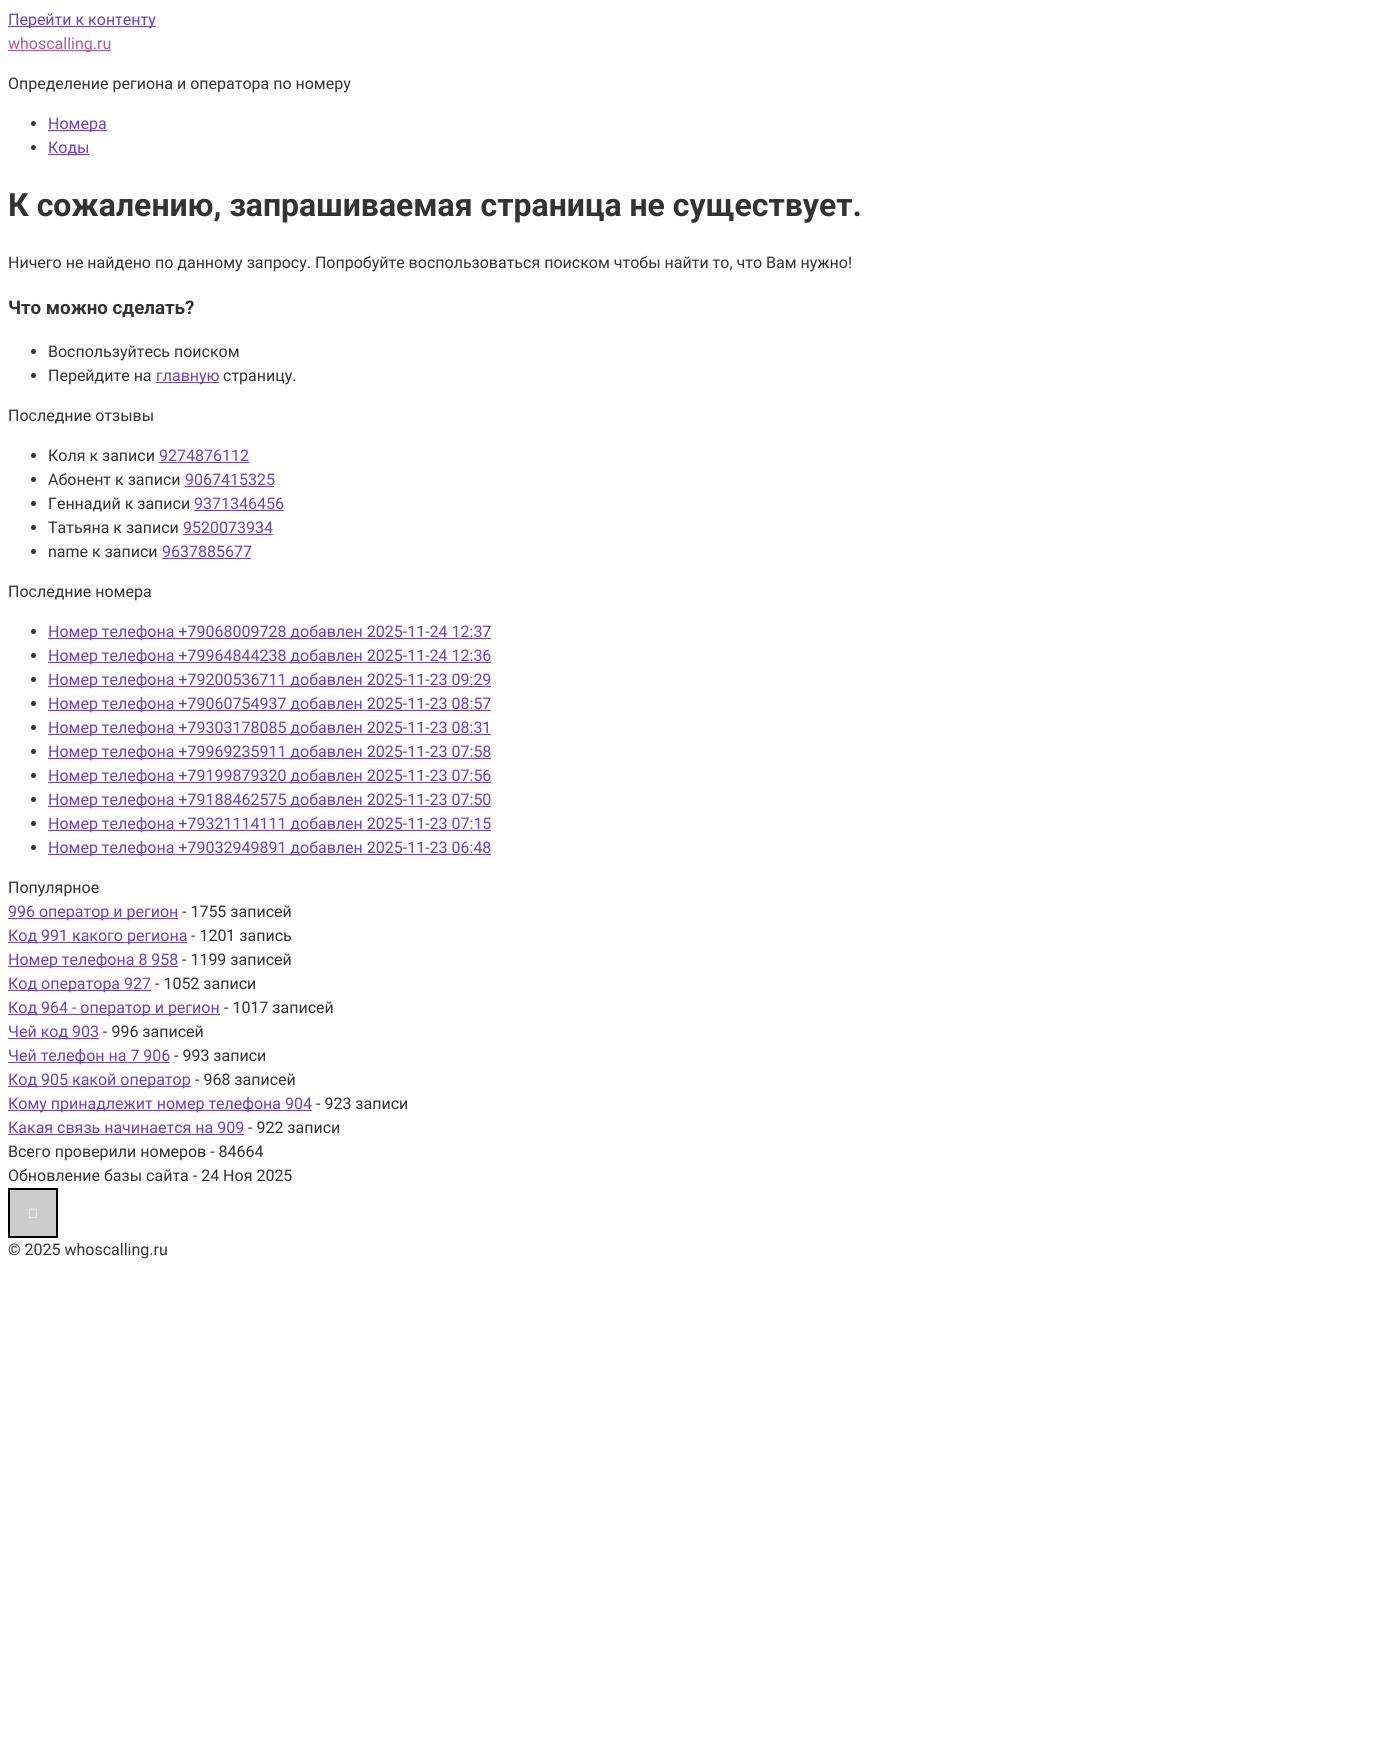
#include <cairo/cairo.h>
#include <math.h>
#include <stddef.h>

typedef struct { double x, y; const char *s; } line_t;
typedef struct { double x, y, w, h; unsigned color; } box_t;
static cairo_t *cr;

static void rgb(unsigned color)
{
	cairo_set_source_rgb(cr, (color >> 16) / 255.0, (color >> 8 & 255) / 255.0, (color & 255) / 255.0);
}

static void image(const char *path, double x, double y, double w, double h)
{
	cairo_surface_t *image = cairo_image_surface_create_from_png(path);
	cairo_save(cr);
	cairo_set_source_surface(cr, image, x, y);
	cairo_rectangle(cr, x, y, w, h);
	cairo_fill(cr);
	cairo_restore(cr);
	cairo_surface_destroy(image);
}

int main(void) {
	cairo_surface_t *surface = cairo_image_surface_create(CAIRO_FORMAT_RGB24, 1385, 1752);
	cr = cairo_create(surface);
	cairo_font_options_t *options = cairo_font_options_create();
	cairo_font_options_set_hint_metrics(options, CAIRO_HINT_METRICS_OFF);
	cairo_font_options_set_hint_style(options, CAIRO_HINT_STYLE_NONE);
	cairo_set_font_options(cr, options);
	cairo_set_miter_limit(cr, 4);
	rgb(0xffffff);
	cairo_paint(cr);
	rgb(0x6a42ca);
	cairo_rectangle(cr, 8, 26, 148, 1);
	cairo_fill(cr);
	rgb(0xb15a9e);
	cairo_rectangle(cr, 8, 50, 103, 1);
	cairo_fill(cr);
	rgb(0x333333);
	cairo_arc(cr, 33.5, 123.5, 2.5, 0, 2 * M_PI);
	cairo_fill(cr);
	rgb(0x6a42ca);
	cairo_rectangle(cr, 48, 130, 59, 1);
	cairo_fill(cr);
	rgb(0x333333);
	cairo_arc(cr, 33.5, 147.5, 2.5, 0, 2 * M_PI);
	cairo_fill(cr);
	rgb(0x6a42ca);
	cairo_rectangle(cr, 48, 154, 41, 1);
	cairo_fill(cr);
	rgb(0x333333);
	cairo_arc(cr, 33.5, 351.5, 2.5, 0, 2 * M_PI);
	cairo_fill(cr);
	cairo_arc(cr, 33.5, 375.5, 2.5, 0, 2 * M_PI);
	cairo_fill(cr);
	rgb(0x6a42ca);
	cairo_rectangle(cr, 156, 382, 63, 1);
	cairo_fill(cr);
	rgb(0x333333);
	cairo_arc(cr, 33.5, 455.5, 2.5, 0, 2 * M_PI);
	cairo_fill(cr);
	rgb(0x6a42ca);
	cairo_rectangle(cr, 159, 462, 90, 1);
	cairo_fill(cr);
	rgb(0x333333);
	cairo_arc(cr, 33.5, 479.5, 2.5, 0, 2 * M_PI);
	cairo_fill(cr);
	rgb(0x6a42ca);
	cairo_rectangle(cr, 185, 486, 89, 1);
	cairo_fill(cr);
	rgb(0x333333);
	cairo_arc(cr, 33.5, 503.5, 2.5, 0, 2 * M_PI);
	cairo_fill(cr);
	rgb(0x6a42ca);
	cairo_rectangle(cr, 194, 510, 90, 1);
	cairo_fill(cr);
	rgb(0x333333);
	cairo_arc(cr, 33.5, 527.5, 2.5, 0, 2 * M_PI);
	cairo_fill(cr);
	rgb(0x6a42ca);
	cairo_rectangle(cr, 183, 534, 90, 1);
	cairo_fill(cr);
	rgb(0x333333);
	cairo_arc(cr, 33.5, 551.5, 2.5, 0, 2 * M_PI);
	cairo_fill(cr);
	rgb(0x6a42ca);
	cairo_rectangle(cr, 162, 558, 89, 1);
	cairo_fill(cr);
	rgb(0x333333);
	cairo_arc(cr, 33.5, 631.5, 2.5, 0, 2 * M_PI);
	cairo_fill(cr);
	rgb(0x6a42ca);
	cairo_rectangle(cr, 48, 638, 443, 1);
	cairo_fill(cr);
	rgb(0x333333);
	cairo_arc(cr, 33.5, 655.5, 2.5, 0, 2 * M_PI);
	cairo_fill(cr);
	rgb(0x6a42ca);
	cairo_rectangle(cr, 48, 662, 443, 1);
	cairo_fill(cr);
	rgb(0x333333);
	cairo_arc(cr, 33.5, 679.5, 2.5, 0, 2 * M_PI);
	cairo_fill(cr);
	rgb(0x6a42ca);
	cairo_rectangle(cr, 48, 686, 443, 1);
	cairo_fill(cr);
	rgb(0x333333);
	cairo_arc(cr, 33.5, 703.5, 2.5, 0, 2 * M_PI);
	cairo_fill(cr);
	rgb(0x6a42ca);
	cairo_rectangle(cr, 48, 710, 443, 1);
	cairo_fill(cr);
	rgb(0x333333);
	cairo_arc(cr, 33.5, 727.5, 2.5, 0, 2 * M_PI);
	cairo_fill(cr);
	rgb(0x6a42ca);
	cairo_rectangle(cr, 48, 734, 443, 1);
	cairo_fill(cr);
	rgb(0x333333);
	cairo_arc(cr, 33.5, 751.5, 2.5, 0, 2 * M_PI);
	cairo_fill(cr);
	rgb(0x6a42ca);
	cairo_rectangle(cr, 48, 758, 443, 1);
	cairo_fill(cr);
	rgb(0x333333);
	cairo_arc(cr, 33.5, 775.5, 2.5, 0, 2 * M_PI);
	cairo_fill(cr);
	rgb(0x6a42ca);
	cairo_rectangle(cr, 48, 782, 443, 1);
	cairo_fill(cr);
	rgb(0x333333);
	cairo_arc(cr, 33.5, 799.5, 2.5, 0, 2 * M_PI);
	cairo_fill(cr);
	rgb(0x6a42ca);
	cairo_rectangle(cr, 48, 806, 443, 1);
	cairo_fill(cr);
	rgb(0x333333);
	cairo_arc(cr, 33.5, 823.5, 2.5, 0, 2 * M_PI);
	cairo_fill(cr);
	rgb(0x6a42ca);
	cairo_rectangle(cr, 48, 830, 443, 1);
	cairo_fill(cr);
	rgb(0x333333);
	cairo_arc(cr, 33.5, 847.5, 2.5, 0, 2 * M_PI);
	cairo_fill(cr);
	{
		static const box_t items[] = {
			{48, 854, 443, 1, 0x6a42ca},
			{8, 918, 170, 1, 0x6a42ca},
			{8, 942, 179, 1, 0x6a42ca},
			{8, 966, 170, 1, 0x6a42ca},
			{8, 990, 143, 1, 0x6a42ca},
			{8, 1014, 212, 1, 0x6a42ca},
			{8, 1038, 91, 1, 0x6a42ca},
			{8, 1062, 162, 1, 0x6a42ca},
			{8, 1086, 183, 1, 0x6a42ca},
			{8, 1110, 304, 1, 0x6a42ca},
			{8, 1134, 236, 1, 0x6a42ca},
		};
		for (size_t i = 0; i < sizeof items / sizeof *items; i++) {
			rgb(items[i].color);
			cairo_rectangle(cr, items[i].x, items[i].y, items[i].w, items[i].h);
			cairo_fill(cr);
		}
	}
	rgb(0xcccccc);
	cairo_rectangle(cr, 9, 1189, 48, 48);
	cairo_fill_preserve(cr);
	rgb(0x000000);
	cairo_stroke(cr);
	image("img/1.png", 29, 1208, 8, 10);
	cairo_select_font_face(cr, "Roboto", CAIRO_FONT_SLANT_NORMAL, CAIRO_FONT_WEIGHT_NORMAL);
	cairo_set_font_size(cr, 16);
	rgb(0x6a42ca);
	cairo_move_to(cr, 8, 25);
	cairo_show_text(cr, "Перейти к контенту");
	rgb(0xb15a9e);
	cairo_move_to(cr, 8, 49);
	cairo_show_text(cr, "whoscalling.ru");
	rgb(0x333333);
	cairo_move_to(cr, 8, 89);
	cairo_show_text(cr, "Определение региона и оператора по номеру");
	rgb(0x6a42ca);
	cairo_move_to(cr, 48, 129);
	cairo_show_text(cr, "Номера");
	cairo_move_to(cr, 48, 153);
	cairo_show_text(cr, "Коды");
	cairo_select_font_face(cr, "Roboto", CAIRO_FONT_SLANT_NORMAL, CAIRO_FONT_WEIGHT_BOLD);
	cairo_set_font_size(cr, 32);
	rgb(0x333333);
	cairo_move_to(cr, 8, 216);
	cairo_show_text(cr, "К сожалению, запрашиваемая страница не существует.");
	cairo_select_font_face(cr, "Roboto", CAIRO_FONT_SLANT_NORMAL, CAIRO_FONT_WEIGHT_NORMAL);
	cairo_set_font_size(cr, 16);
	cairo_move_to(cr, 8, 268);
	cairo_show_text(cr, "Ничего не найдено по данному запросу. Попробуйте воспользоваться поиском чтобы найти то, что Вам нужно!");
	cairo_select_font_face(cr, "Roboto", CAIRO_FONT_SLANT_NORMAL, CAIRO_FONT_WEIGHT_BOLD);
	cairo_set_font_size(cr, 18.75);
	cairo_move_to(cr, 8, 314);
	cairo_show_text(cr, "Что можно сделать?");
	cairo_select_font_face(cr, "Roboto", CAIRO_FONT_SLANT_NORMAL, CAIRO_FONT_WEIGHT_NORMAL);
	cairo_set_font_size(cr, 16);
	cairo_move_to(cr, 48, 357);
	cairo_show_text(cr, "Воспользуйтесь поиском");
	cairo_move_to(cr, 48, 381);
	cairo_show_text(cr, "Перейдите на");
	rgb(0x6a42ca);
	cairo_move_to(cr, 156, 381);
	cairo_show_text(cr, "главную");
	rgb(0x333333);
	{
		static const line_t items[] = {
			{223, 381, "страницу."},
			{8, 421, "Последние отзывы"},
			{48, 461, "Коля к записи"},
		};
		for (size_t i = 0; i < sizeof items / sizeof *items; i++) {
			cairo_move_to(cr, items[i].x, items[i].y);
			cairo_show_text(cr, items[i].s);
		}
	}
	rgb(0x6a42ca);
	cairo_move_to(cr, 159, 461);
	cairo_show_text(cr, "9274876112");
	rgb(0x333333);
	cairo_move_to(cr, 48, 485);
	cairo_show_text(cr, "Абонент к записи");
	rgb(0x6a42ca);
	cairo_move_to(cr, 185, 485);
	cairo_show_text(cr, "9067415325");
	rgb(0x333333);
	cairo_move_to(cr, 48, 509);
	cairo_show_text(cr, "Геннадий к записи");
	rgb(0x6a42ca);
	cairo_move_to(cr, 194, 509);
	cairo_show_text(cr, "9371346456");
	rgb(0x333333);
	cairo_move_to(cr, 48, 533);
	cairo_show_text(cr, "Татьяна к записи");
	rgb(0x6a42ca);
	cairo_move_to(cr, 183, 533);
	cairo_show_text(cr, "9520073934");
	rgb(0x333333);
	cairo_move_to(cr, 48, 557);
	cairo_show_text(cr, "name к записи");
	rgb(0x6a42ca);
	cairo_move_to(cr, 162, 557);
	cairo_show_text(cr, "9637885677");
	rgb(0x333333);
	cairo_move_to(cr, 8, 597);
	cairo_show_text(cr, "Последние номера");
	rgb(0x6a42ca);
	{
		static const line_t items[] = {
			{48, 637, "Номер телефона +79068009728 добавлен 2025-11-24 12:37"},
			{48, 661, "Номер телефона +79964844238 добавлен 2025-11-24 12:36"},
			{48, 685, "Номер телефона +79200536711 добавлен 2025-11-23 09:29"},
			{48, 709, "Номер телефона +79060754937 добавлен 2025-11-23 08:57"},
			{48, 733, "Номер телефона +79303178085 добавлен 2025-11-23 08:31"},
			{48, 757, "Номер телефона +79969235911 добавлен 2025-11-23 07:58"},
			{48, 781, "Номер телефона +79199879320 добавлен 2025-11-23 07:56"},
			{48, 805, "Номер телефона +79188462575 добавлен 2025-11-23 07:50"},
			{48, 829, "Номер телефона +79321114111 добавлен 2025-11-23 07:15"},
			{48, 853, "Номер телефона +79032949891 добавлен 2025-11-23 06:48"},
		};
		for (size_t i = 0; i < sizeof items / sizeof *items; i++) {
			cairo_move_to(cr, items[i].x, items[i].y);
			cairo_show_text(cr, items[i].s);
		}
	}
	rgb(0x333333);
	cairo_move_to(cr, 8, 893);
	cairo_show_text(cr, "Популярное");
	rgb(0x6a42ca);
	cairo_move_to(cr, 8, 917);
	cairo_show_text(cr, "996 оператор и регион");
	rgb(0x333333);
	cairo_move_to(cr, 182, 917);
	cairo_show_text(cr, "- 1755 записей");
	rgb(0x6a42ca);
	cairo_move_to(cr, 8, 941);
	cairo_show_text(cr, "Код 991 какого региона");
	rgb(0x333333);
	cairo_move_to(cr, 191, 941);
	cairo_show_text(cr, "- 1201 запись");
	rgb(0x6a42ca);
	cairo_move_to(cr, 8, 965);
	cairo_show_text(cr, "Номер телефона 8 958");
	rgb(0x333333);
	cairo_move_to(cr, 182, 965);
	cairo_show_text(cr, "- 1199 записей");
	rgb(0x6a42ca);
	cairo_move_to(cr, 8, 989);
	cairo_show_text(cr, "Код оператора 927");
	rgb(0x333333);
	cairo_move_to(cr, 155, 989);
	cairo_show_text(cr, "- 1052 записи");
	rgb(0x6a42ca);
	cairo_move_to(cr, 8, 1013);
	cairo_show_text(cr, "Код 964 - оператор и регион");
	rgb(0x333333);
	cairo_move_to(cr, 224, 1013);
	cairo_show_text(cr, "- 1017 записей");
	rgb(0x6a42ca);
	cairo_move_to(cr, 8, 1037);
	cairo_show_text(cr, "Чей код 903");
	rgb(0x333333);
	cairo_move_to(cr, 103, 1037);
	cairo_show_text(cr, "- 996 записей");
	rgb(0x6a42ca);
	cairo_move_to(cr, 8, 1061);
	cairo_show_text(cr, "Чей телефон на 7 906");
	rgb(0x333333);
	cairo_move_to(cr, 174, 1061);
	cairo_show_text(cr, "- 993 записи");
	rgb(0x6a42ca);
	cairo_move_to(cr, 8, 1085);
	cairo_show_text(cr, "Код 905 какой оператор");
	rgb(0x333333);
	cairo_move_to(cr, 195, 1085);
	cairo_show_text(cr, "- 968 записей");
	rgb(0x6a42ca);
	cairo_move_to(cr, 8, 1109);
	cairo_show_text(cr, "Кому принадлежит номер телефона 904");
	rgb(0x333333);
	cairo_move_to(cr, 316, 1109);
	cairo_show_text(cr, "- 923 записи");
	rgb(0x6a42ca);
	cairo_move_to(cr, 8, 1133);
	cairo_show_text(cr, "Какая связь начинается на 909");
	rgb(0x333333);
	{
		static const line_t items[] = {
			{248, 1133, "- 922 записи"},
			{8, 1157, "Всего проверили номеров - 84664"},
			{8, 1181, "Обновление базы сайта - 24 Ноя 2025"},
			{8, 1255, "© 2025 whoscalling.ru"},
		};
		for (size_t i = 0; i < sizeof items / sizeof *items; i++) {
			cairo_move_to(cr, items[i].x, items[i].y);
			cairo_show_text(cr, items[i].s);
		}
	}
	cairo_surface_write_to_png(surface, "page.png");
	cairo_font_options_destroy(options);
	cairo_destroy(cr);
	cairo_surface_destroy(surface);
	return 0;
}
